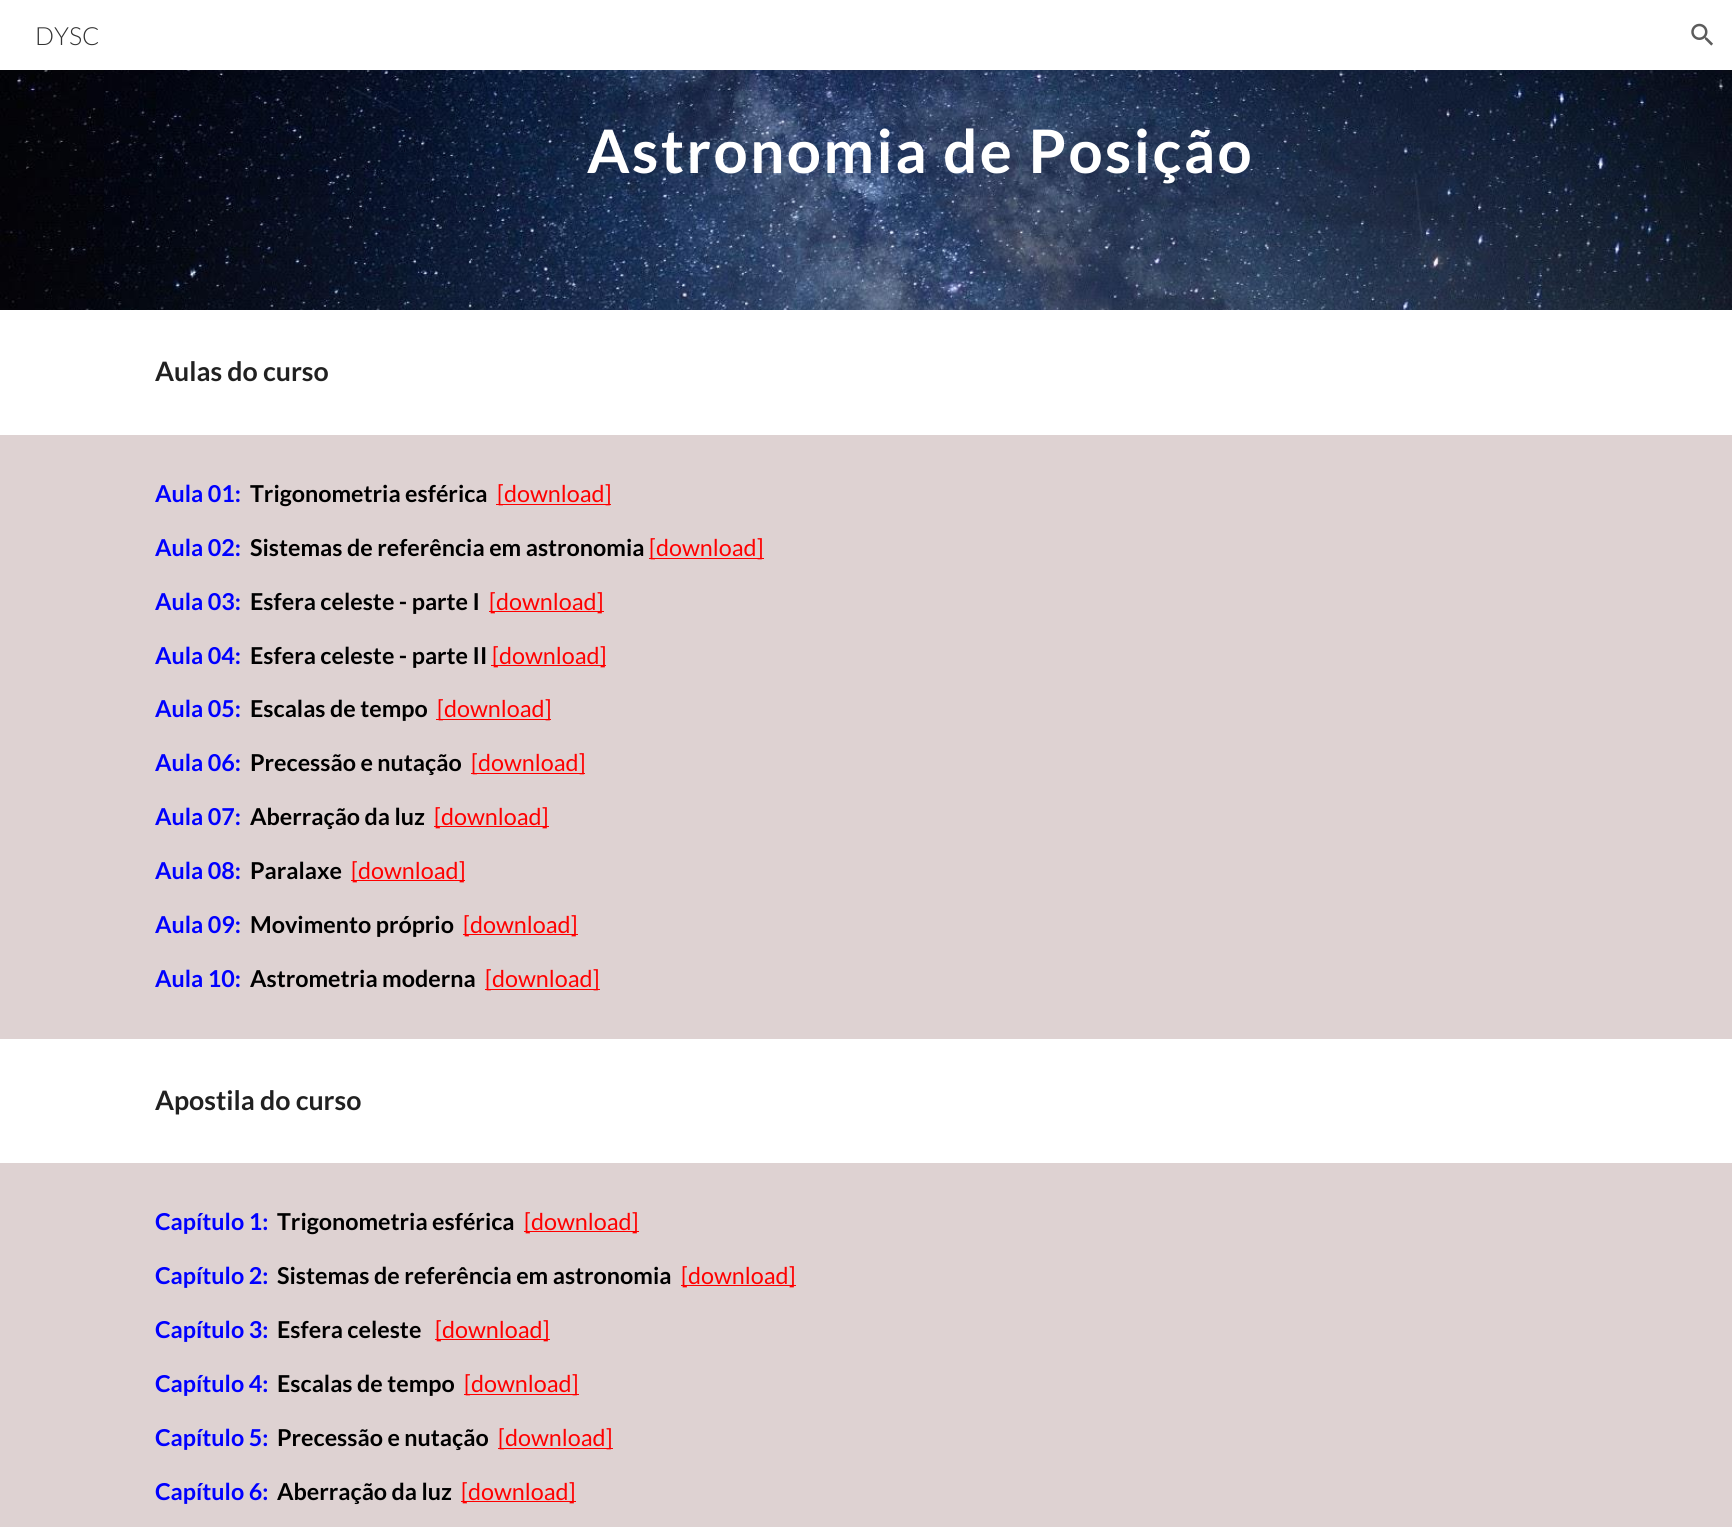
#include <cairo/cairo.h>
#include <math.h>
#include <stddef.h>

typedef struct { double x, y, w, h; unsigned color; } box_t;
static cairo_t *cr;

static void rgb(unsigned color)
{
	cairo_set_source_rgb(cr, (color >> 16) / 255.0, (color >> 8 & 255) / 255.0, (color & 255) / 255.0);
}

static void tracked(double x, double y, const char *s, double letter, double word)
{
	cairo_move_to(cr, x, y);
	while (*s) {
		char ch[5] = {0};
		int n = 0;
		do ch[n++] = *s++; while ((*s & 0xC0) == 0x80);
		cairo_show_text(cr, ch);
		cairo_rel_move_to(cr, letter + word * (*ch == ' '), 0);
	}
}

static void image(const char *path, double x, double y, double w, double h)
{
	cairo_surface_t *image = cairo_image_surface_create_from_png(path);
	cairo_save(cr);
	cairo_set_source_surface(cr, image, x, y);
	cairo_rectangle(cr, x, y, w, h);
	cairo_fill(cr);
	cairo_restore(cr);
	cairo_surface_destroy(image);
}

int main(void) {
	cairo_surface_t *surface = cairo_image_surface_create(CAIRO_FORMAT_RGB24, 1732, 1527);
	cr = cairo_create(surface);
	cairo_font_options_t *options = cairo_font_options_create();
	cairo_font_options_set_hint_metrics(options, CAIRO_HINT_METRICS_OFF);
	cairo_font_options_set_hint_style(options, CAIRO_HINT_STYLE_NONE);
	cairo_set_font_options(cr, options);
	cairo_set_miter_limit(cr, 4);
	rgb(0xffffff);
	cairo_paint(cr);
	image("img/1.png", 1691, 23, 22, 23);
	image("img/2.png", 0, 70, 1732, 240);
	{
		static const box_t items[] = {
			{0, 435, 1732, 604, 0xded2d2},
			{496, 504, 115, 1, 0xff0000},
			{649, 558, 115, 1, 0xff0000},
			{489, 611, 115, 1, 0xff0000},
			{491, 665, 115, 1, 0xff0000},
			{436, 719, 115, 1, 0xff0000},
			{471, 773, 114, 1, 0xff0000},
			{434, 826, 115, 1, 0xff0000},
			{351, 880, 114, 1, 0xff0000},
			{463, 934, 115, 1, 0xff0000},
			{485, 989, 115, 1, 0xff0000},
			{0, 1163, 1732, 364, 0xded2d2},
			{524, 1231, 115, 1, 0xff0000},
			{681, 1285, 115, 1, 0xff0000},
			{435, 1339, 115, 1, 0xff0000},
			{464, 1394, 115, 1, 0xff0000},
			{498, 1448, 115, 1, 0xff0000},
			{461, 1501, 115, 1, 0xff0000},
		};
		for (size_t i = 0; i < sizeof items / sizeof *items; i++) {
			rgb(items[i].color);
			cairo_rectangle(cr, items[i].x, items[i].y, items[i].w, items[i].h);
			cairo_fill(cr);
		}
	}
	cairo_select_font_face(cr, "Lato Light", CAIRO_FONT_SLANT_NORMAL, CAIRO_FONT_WEIGHT_NORMAL);
	cairo_set_font_size(cr, 25);
	rgb(0x333333);
	cairo_move_to(cr, 35, 45);
	cairo_show_text(cr, "DYSC");
	cairo_select_font_face(cr, "Lato", CAIRO_FONT_SLANT_NORMAL, CAIRO_FONT_WEIGHT_BOLD);
	cairo_set_font_size(cr, 60);
	rgb(0xffffff);
	tracked(587, 173, "Astronomia de Posição", 2.5, 0);
	cairo_set_font_size(cr, 26.75);
	rgb(0x212121);
	cairo_move_to(cr, 155, 381);
	cairo_show_text(cr, "Aulas do curso");
	cairo_set_font_size(cr, 23.3);
	rgb(0x0000ff);
	cairo_move_to(cr, 155, 502);
	cairo_show_text(cr, "Aula 01:");
	rgb(0x000000);
	cairo_move_to(cr, 250, 502);
	cairo_show_text(cr, "Trigonometria esférica");
	cairo_select_font_face(cr, "Lato", CAIRO_FONT_SLANT_NORMAL, CAIRO_FONT_WEIGHT_NORMAL);
	rgb(0xff0000);
	cairo_move_to(cr, 497, 502);
	cairo_show_text(cr, "[download]");
	cairo_select_font_face(cr, "Lato", CAIRO_FONT_SLANT_NORMAL, CAIRO_FONT_WEIGHT_BOLD);
	rgb(0x0000ff);
	cairo_move_to(cr, 155, 556);
	cairo_show_text(cr, "Aula 02:");
	rgb(0x000000);
	cairo_move_to(cr, 250, 556);
	cairo_show_text(cr, "Sistemas de referência em astronomia");
	cairo_select_font_face(cr, "Lato", CAIRO_FONT_SLANT_NORMAL, CAIRO_FONT_WEIGHT_NORMAL);
	rgb(0xff0000);
	cairo_move_to(cr, 649, 556);
	cairo_show_text(cr, "[download]");
	cairo_select_font_face(cr, "Lato", CAIRO_FONT_SLANT_NORMAL, CAIRO_FONT_WEIGHT_BOLD);
	rgb(0x0000ff);
	cairo_move_to(cr, 155, 610);
	cairo_show_text(cr, "Aula 03:");
	rgb(0x000000);
	cairo_move_to(cr, 250, 610);
	cairo_show_text(cr, "Esfera celeste - parte I");
	cairo_select_font_face(cr, "Lato", CAIRO_FONT_SLANT_NORMAL, CAIRO_FONT_WEIGHT_NORMAL);
	rgb(0xff0000);
	cairo_move_to(cr, 489, 610);
	cairo_show_text(cr, "[download]");
	cairo_select_font_face(cr, "Lato", CAIRO_FONT_SLANT_NORMAL, CAIRO_FONT_WEIGHT_BOLD);
	rgb(0x0000ff);
	cairo_move_to(cr, 155, 664);
	cairo_show_text(cr, "Aula 04:");
	rgb(0x000000);
	cairo_move_to(cr, 250, 664);
	cairo_show_text(cr, "Esfera celeste - parte II");
	cairo_select_font_face(cr, "Lato", CAIRO_FONT_SLANT_NORMAL, CAIRO_FONT_WEIGHT_NORMAL);
	rgb(0xff0000);
	cairo_move_to(cr, 492, 664);
	cairo_show_text(cr, "[download]");
	cairo_select_font_face(cr, "Lato", CAIRO_FONT_SLANT_NORMAL, CAIRO_FONT_WEIGHT_BOLD);
	rgb(0x0000ff);
	cairo_move_to(cr, 155, 717);
	cairo_show_text(cr, "Aula 05:");
	rgb(0x000000);
	cairo_move_to(cr, 250, 717);
	cairo_show_text(cr, "Escalas de tempo");
	cairo_select_font_face(cr, "Lato", CAIRO_FONT_SLANT_NORMAL, CAIRO_FONT_WEIGHT_NORMAL);
	rgb(0xff0000);
	cairo_move_to(cr, 437, 717);
	cairo_show_text(cr, "[download]");
	cairo_select_font_face(cr, "Lato", CAIRO_FONT_SLANT_NORMAL, CAIRO_FONT_WEIGHT_BOLD);
	rgb(0x0000ff);
	cairo_move_to(cr, 155, 771);
	cairo_show_text(cr, "Aula 06:");
	rgb(0x000000);
	cairo_move_to(cr, 250, 771);
	cairo_show_text(cr, "Precessão e nutação");
	cairo_select_font_face(cr, "Lato", CAIRO_FONT_SLANT_NORMAL, CAIRO_FONT_WEIGHT_NORMAL);
	rgb(0xff0000);
	cairo_move_to(cr, 471, 771);
	cairo_show_text(cr, "[download]");
	cairo_select_font_face(cr, "Lato", CAIRO_FONT_SLANT_NORMAL, CAIRO_FONT_WEIGHT_BOLD);
	rgb(0x0000ff);
	cairo_move_to(cr, 155, 825);
	cairo_show_text(cr, "Aula 07:");
	rgb(0x000000);
	cairo_move_to(cr, 250, 825);
	cairo_show_text(cr, "Aberração da luz");
	cairo_select_font_face(cr, "Lato", CAIRO_FONT_SLANT_NORMAL, CAIRO_FONT_WEIGHT_NORMAL);
	rgb(0xff0000);
	cairo_move_to(cr, 434, 825);
	cairo_show_text(cr, "[download]");
	cairo_select_font_face(cr, "Lato", CAIRO_FONT_SLANT_NORMAL, CAIRO_FONT_WEIGHT_BOLD);
	rgb(0x0000ff);
	cairo_move_to(cr, 155, 879);
	cairo_show_text(cr, "Aula 08:");
	rgb(0x000000);
	cairo_move_to(cr, 250, 879);
	cairo_show_text(cr, "Paralaxe");
	cairo_select_font_face(cr, "Lato", CAIRO_FONT_SLANT_NORMAL, CAIRO_FONT_WEIGHT_NORMAL);
	rgb(0xff0000);
	cairo_move_to(cr, 351, 879);
	cairo_show_text(cr, "[download]");
	cairo_select_font_face(cr, "Lato", CAIRO_FONT_SLANT_NORMAL, CAIRO_FONT_WEIGHT_BOLD);
	rgb(0x0000ff);
	cairo_move_to(cr, 155, 933);
	cairo_show_text(cr, "Aula 09:");
	rgb(0x000000);
	cairo_move_to(cr, 250, 933);
	cairo_show_text(cr, "Movimento próprio");
	cairo_select_font_face(cr, "Lato", CAIRO_FONT_SLANT_NORMAL, CAIRO_FONT_WEIGHT_NORMAL);
	rgb(0xff0000);
	cairo_move_to(cr, 463, 933);
	cairo_show_text(cr, "[download]");
	cairo_select_font_face(cr, "Lato", CAIRO_FONT_SLANT_NORMAL, CAIRO_FONT_WEIGHT_BOLD);
	rgb(0x0000ff);
	cairo_move_to(cr, 155, 987);
	cairo_show_text(cr, "Aula 10:");
	rgb(0x000000);
	cairo_move_to(cr, 250, 987);
	cairo_show_text(cr, "Astrometria moderna");
	cairo_select_font_face(cr, "Lato", CAIRO_FONT_SLANT_NORMAL, CAIRO_FONT_WEIGHT_NORMAL);
	rgb(0xff0000);
	cairo_move_to(cr, 485, 987);
	cairo_show_text(cr, "[download]");
	cairo_select_font_face(cr, "Lato", CAIRO_FONT_SLANT_NORMAL, CAIRO_FONT_WEIGHT_BOLD);
	cairo_set_font_size(cr, 26.75);
	rgb(0x212121);
	cairo_move_to(cr, 155, 1110);
	cairo_show_text(cr, "Apostila do curso");
	cairo_set_font_size(cr, 23.3);
	rgb(0x0000ff);
	cairo_move_to(cr, 155, 1230);
	cairo_show_text(cr, "Capítulo 1:");
	rgb(0x000000);
	cairo_move_to(cr, 277, 1230);
	cairo_show_text(cr, "Trigonometria esférica");
	cairo_select_font_face(cr, "Lato", CAIRO_FONT_SLANT_NORMAL, CAIRO_FONT_WEIGHT_NORMAL);
	rgb(0xff0000);
	cairo_move_to(cr, 524, 1230);
	cairo_show_text(cr, "[download]");
	cairo_select_font_face(cr, "Lato", CAIRO_FONT_SLANT_NORMAL, CAIRO_FONT_WEIGHT_BOLD);
	rgb(0x0000ff);
	cairo_move_to(cr, 155, 1284);
	cairo_show_text(cr, "Capítulo 2:");
	rgb(0x000000);
	cairo_move_to(cr, 277, 1284);
	cairo_show_text(cr, "Sistemas de referência em astronomia");
	cairo_select_font_face(cr, "Lato", CAIRO_FONT_SLANT_NORMAL, CAIRO_FONT_WEIGHT_NORMAL);
	rgb(0xff0000);
	cairo_move_to(cr, 681, 1284);
	cairo_show_text(cr, "[download]");
	cairo_select_font_face(cr, "Lato", CAIRO_FONT_SLANT_NORMAL, CAIRO_FONT_WEIGHT_BOLD);
	rgb(0x0000ff);
	cairo_move_to(cr, 155, 1338);
	cairo_show_text(cr, "Capítulo 3:");
	rgb(0x000000);
	cairo_move_to(cr, 277, 1338);
	cairo_show_text(cr, "Esfera celeste");
	cairo_select_font_face(cr, "Lato", CAIRO_FONT_SLANT_NORMAL, CAIRO_FONT_WEIGHT_NORMAL);
	rgb(0xff0000);
	cairo_move_to(cr, 435, 1338);
	cairo_show_text(cr, "[download]");
	cairo_select_font_face(cr, "Lato", CAIRO_FONT_SLANT_NORMAL, CAIRO_FONT_WEIGHT_BOLD);
	rgb(0x0000ff);
	cairo_move_to(cr, 155, 1392);
	cairo_show_text(cr, "Capítulo 4:");
	rgb(0x000000);
	cairo_move_to(cr, 277, 1392);
	cairo_show_text(cr, "Escalas de tempo");
	cairo_select_font_face(cr, "Lato", CAIRO_FONT_SLANT_NORMAL, CAIRO_FONT_WEIGHT_NORMAL);
	rgb(0xff0000);
	cairo_move_to(cr, 464, 1392);
	cairo_show_text(cr, "[download]");
	cairo_select_font_face(cr, "Lato", CAIRO_FONT_SLANT_NORMAL, CAIRO_FONT_WEIGHT_BOLD);
	rgb(0x0000ff);
	cairo_move_to(cr, 155, 1446);
	cairo_show_text(cr, "Capítulo 5:");
	rgb(0x000000);
	cairo_move_to(cr, 277, 1446);
	cairo_show_text(cr, "Precessão e nutação");
	cairo_select_font_face(cr, "Lato", CAIRO_FONT_SLANT_NORMAL, CAIRO_FONT_WEIGHT_NORMAL);
	rgb(0xff0000);
	cairo_move_to(cr, 498, 1446);
	cairo_show_text(cr, "[download]");
	cairo_select_font_face(cr, "Lato", CAIRO_FONT_SLANT_NORMAL, CAIRO_FONT_WEIGHT_BOLD);
	rgb(0x0000ff);
	cairo_move_to(cr, 155, 1500);
	cairo_show_text(cr, "Capítulo 6:");
	rgb(0x000000);
	cairo_move_to(cr, 277, 1500);
	cairo_show_text(cr, "Aberração da luz");
	cairo_select_font_face(cr, "Lato", CAIRO_FONT_SLANT_NORMAL, CAIRO_FONT_WEIGHT_NORMAL);
	rgb(0xff0000);
	cairo_move_to(cr, 461, 1500);
	cairo_show_text(cr, "[download]");
	cairo_surface_write_to_png(surface, "page.png");
	cairo_font_options_destroy(options);
	cairo_destroy(cr);
	cairo_surface_destroy(surface);
	return 0;
}
